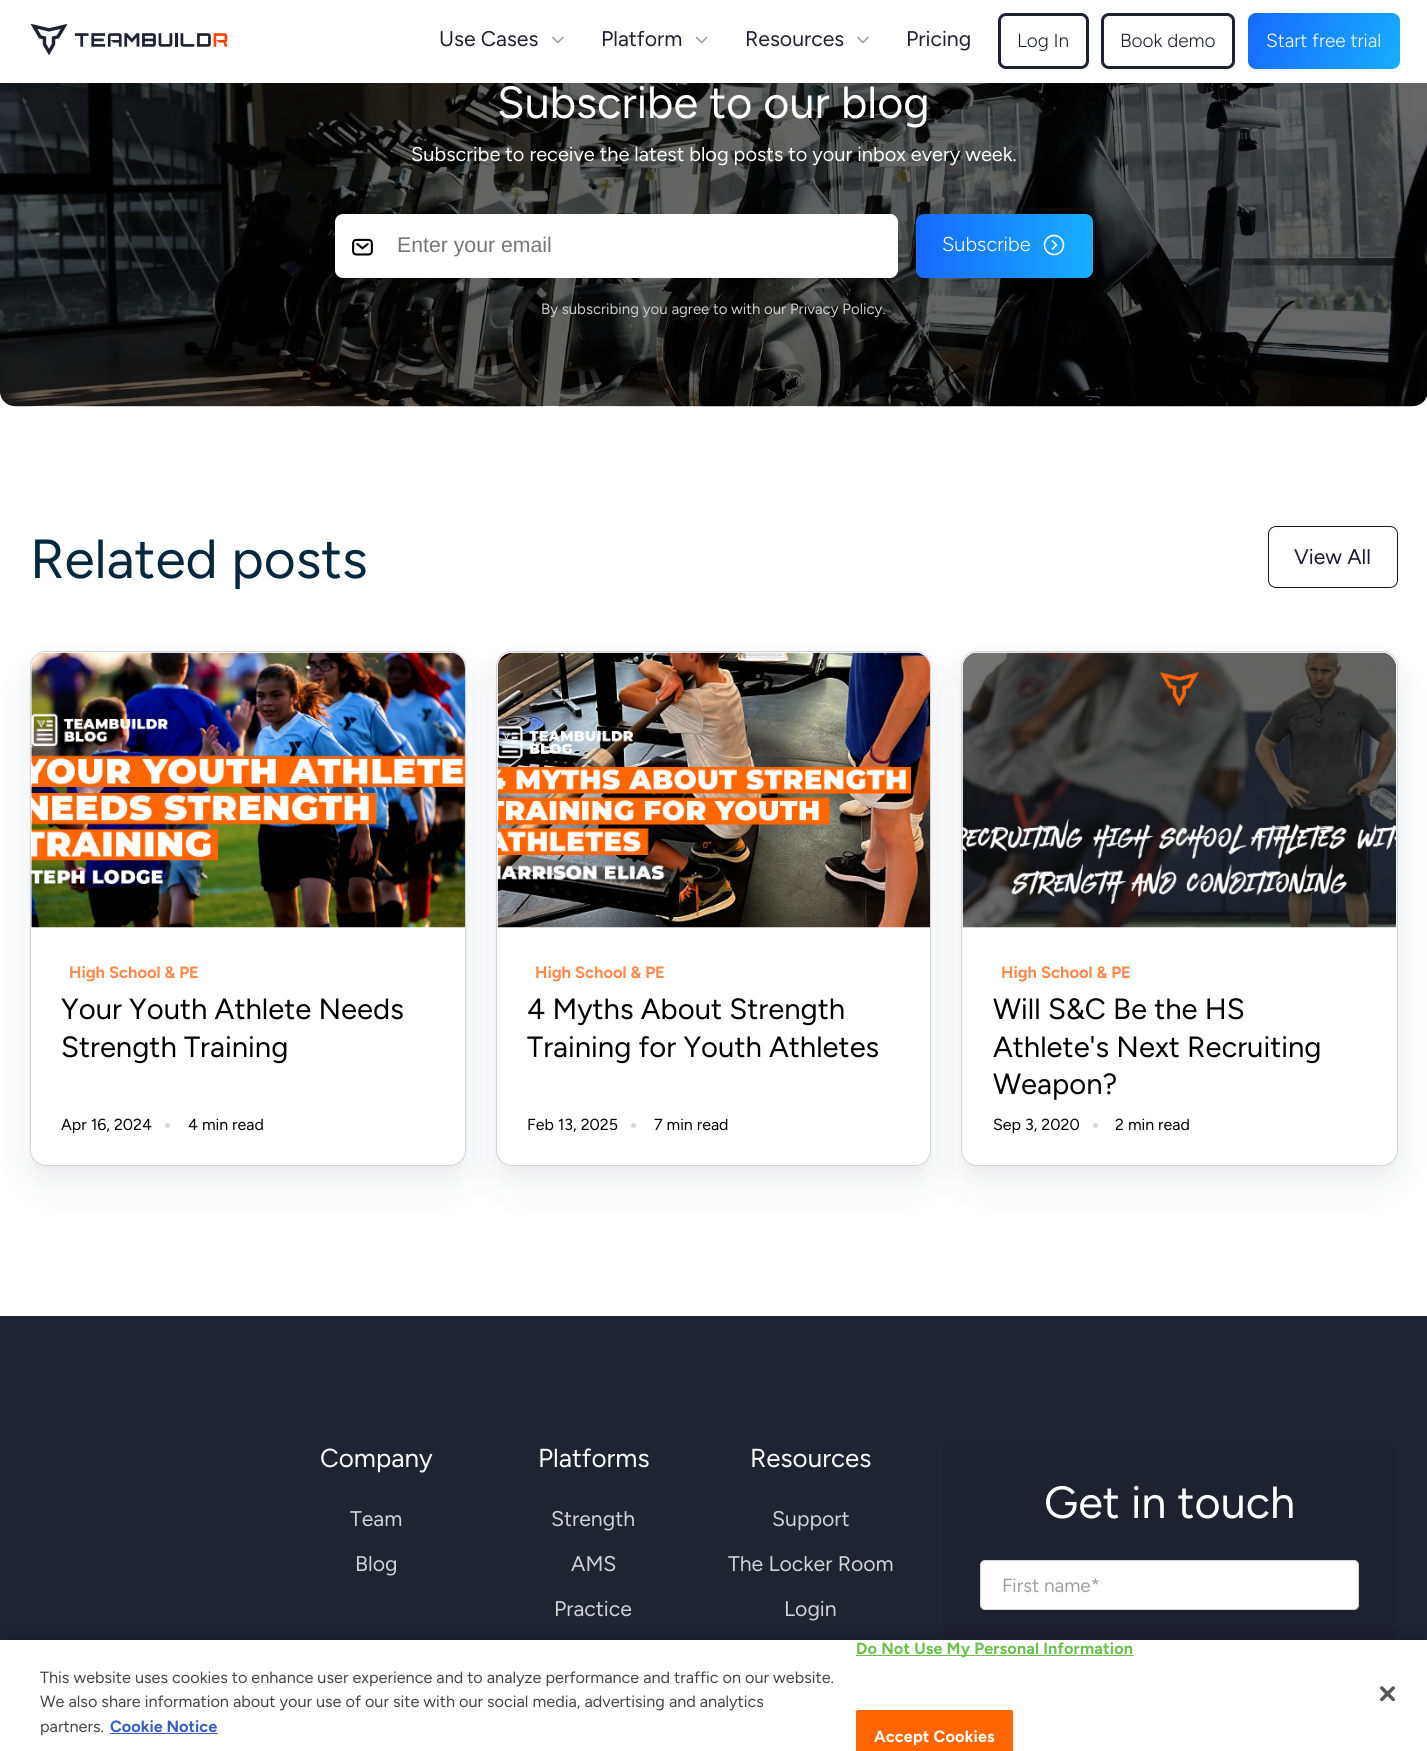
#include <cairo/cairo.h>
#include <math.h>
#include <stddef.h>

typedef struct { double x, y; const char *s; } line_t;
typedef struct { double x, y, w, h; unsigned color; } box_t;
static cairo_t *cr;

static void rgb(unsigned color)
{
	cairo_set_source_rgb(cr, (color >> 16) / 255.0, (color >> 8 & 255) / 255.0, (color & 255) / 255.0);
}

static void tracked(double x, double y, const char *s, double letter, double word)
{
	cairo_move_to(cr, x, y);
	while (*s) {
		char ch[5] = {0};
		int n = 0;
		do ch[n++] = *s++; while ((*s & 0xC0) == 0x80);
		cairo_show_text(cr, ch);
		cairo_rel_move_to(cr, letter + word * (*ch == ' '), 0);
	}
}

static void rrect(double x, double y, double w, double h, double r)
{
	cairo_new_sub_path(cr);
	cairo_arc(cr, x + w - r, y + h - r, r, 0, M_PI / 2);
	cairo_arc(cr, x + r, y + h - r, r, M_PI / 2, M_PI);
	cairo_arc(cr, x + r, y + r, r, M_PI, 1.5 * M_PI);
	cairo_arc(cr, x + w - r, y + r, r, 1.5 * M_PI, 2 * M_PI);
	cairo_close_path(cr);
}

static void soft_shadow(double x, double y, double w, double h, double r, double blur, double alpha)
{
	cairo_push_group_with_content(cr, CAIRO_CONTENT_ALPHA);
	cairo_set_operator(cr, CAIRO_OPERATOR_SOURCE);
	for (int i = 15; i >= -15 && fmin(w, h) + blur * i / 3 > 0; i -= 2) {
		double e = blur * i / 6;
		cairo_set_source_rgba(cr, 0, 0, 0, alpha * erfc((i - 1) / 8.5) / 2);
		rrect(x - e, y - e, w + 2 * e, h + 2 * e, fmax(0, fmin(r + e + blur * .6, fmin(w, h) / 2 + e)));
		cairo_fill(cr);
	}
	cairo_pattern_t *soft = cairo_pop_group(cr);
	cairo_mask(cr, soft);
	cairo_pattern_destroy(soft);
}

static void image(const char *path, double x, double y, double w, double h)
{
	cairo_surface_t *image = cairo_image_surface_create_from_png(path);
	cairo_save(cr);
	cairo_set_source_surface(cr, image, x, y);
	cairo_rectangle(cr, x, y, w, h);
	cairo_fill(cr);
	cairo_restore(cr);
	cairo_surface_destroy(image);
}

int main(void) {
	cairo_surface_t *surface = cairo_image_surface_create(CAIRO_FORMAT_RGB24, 1427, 1751);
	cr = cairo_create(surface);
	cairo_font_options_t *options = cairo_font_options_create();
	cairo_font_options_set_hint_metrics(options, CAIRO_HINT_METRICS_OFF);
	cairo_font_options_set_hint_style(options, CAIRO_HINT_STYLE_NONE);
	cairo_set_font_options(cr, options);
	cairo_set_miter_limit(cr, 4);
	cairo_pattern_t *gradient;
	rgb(0xffffff);
	cairo_paint(cr);
	image("img/4.png", 0, 83, 1427, 324);
	cairo_set_source_rgba(cr, 0, 0, 0, 0.6);
	rrect(0, -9, 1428, 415, 15);
	cairo_fill(cr);
	rgb(0xffffff);
	cairo_rectangle(cr, 0, 0, 1427, 83);
	cairo_fill(cr);
	image("img/1.png", 30, 24, 198, 32);
	image("img/2.png", 552, 36, 12, 8);
	image("img/3.png", 695, 36, 13, 8);
	image("img/2.png", 857, 36, 12, 8);
	rrect(999.5, 14.5, 88, 53, 6.5);
	rgb(0x1e212e);
	cairo_set_line_width(cr, 3);
	cairo_stroke(cr);
	rrect(1102.5, 14.5, 131, 53, 6.5);
	cairo_stroke(cr);
	gradient = cairo_pattern_create_linear(1248, 12, 1400, 70);
	cairo_pattern_add_color_stop_rgba(gradient, 0, 0.09, 0.412, 1, 1);
	cairo_pattern_add_color_stop_rgba(gradient, 1, 0.09, 0.682, 1, 1);
	cairo_set_source(cr, gradient);
	cairo_pattern_destroy(gradient);
	rrect(1248, 13, 152, 56, 8);
	cairo_fill(cr);
	rgb(0xffffff);
	rrect(335, 214, 563, 64, 8);
	cairo_fill(cr);
	image("img/5.png", 352, 238, 21, 18);
	gradient = cairo_pattern_create_linear(916, 246, 1093, 246);
	cairo_pattern_add_color_stop_rgba(gradient, 0, 0.09, 0.412, 1, 1);
	cairo_pattern_add_color_stop_rgba(gradient, 1, 0.094, 0.682, 1, 1);
	cairo_set_source(cr, gradient);
	cairo_pattern_destroy(gradient);
	rrect(916, 214, 177, 64, 8);
	cairo_fill(cr);
	cairo_arc(cr, 1054, 245, 9.5, 0, 2 * M_PI);
	rgb(0xffffff);
	cairo_set_line_width(cr, 1.6);
	cairo_stroke(cr);
	cairo_new_path(cr);
	cairo_move_to(cr, 1052, 240.5);
	cairo_line_to(cr, 1056.5, 245);
	cairo_line_to(cr, 1052, 249.5);
	cairo_stroke(cr);
	rrect(1268.5, 526.5, 129, 61, 7.5);
	rgb(0x1a1a2e);
	cairo_set_line_width(cr, 1);
	cairo_stroke(cr);
	rgb(0x1e212e);
	soft_shadow(30, 661, 436, 515, 16, 10, 0.05);
	soft_shadow(30, 671, 436, 515, 16, 20, 0.05);
	rgb(0xffffff);
	rrect(30.5, 651.5, 435, 514, 15.5);
	cairo_fill_preserve(cr);
	rgb(0xd1d5db);
	cairo_stroke(cr);
	image("img/6.png", 31, 652, 434, 276);
	rgb(0xd9d9d9);
	cairo_arc(cr, 167.5, 1125.5, 2.5, 0, 2 * M_PI);
	cairo_fill(cr);
	rgb(0x1e212e);
	soft_shadow(496, 661, 435, 515, 16, 10, 0.05);
	soft_shadow(496, 671, 435, 515, 16, 20, 0.05);
	rgb(0xffffff);
	rrect(496.5, 651.5, 434, 514, 15.5);
	cairo_fill_preserve(cr);
	rgb(0xd1d5db);
	cairo_stroke(cr);
	image("img/7.png", 497, 652, 433, 276);
	rgb(0xd9d9d9);
	cairo_arc(cr, 633.5, 1125.5, 2.5, 0, 2 * M_PI);
	cairo_fill(cr);
	rgb(0x1e212e);
	soft_shadow(961, 661, 437, 515, 16, 10, 0.05);
	soft_shadow(961, 671, 437, 515, 16, 20, 0.05);
	rgb(0xffffff);
	rrect(961.5, 651.5, 436, 514, 15.5);
	cairo_fill_preserve(cr);
	rgb(0xd1d5db);
	cairo_stroke(cr);
	image("img/8.png", 962, 652, 434, 276);
	rgb(0xd9d9d9);
	cairo_arc(cr, 1095.5, 1125.5, 2.5, 0, 2 * M_PI);
	cairo_fill(cr);
	rgb(0x1e2430);
	cairo_rectangle(cr, 0, 1316, 1427, 324);
	cairo_fill(cr);
	rgb(0x1e212e);
	rrect(943, 1438, 453, 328, 15);
	cairo_fill(cr);
	rgb(0xffffff);
	rrect(980.5, 1560.5, 378, 49, 4.5);
	cairo_fill_preserve(cr);
	rgb(0xd4d4d4);
	cairo_stroke(cr);
	rgb(0x000000);
	soft_shadow(0, 1640, 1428, 111, 0, 11, 0.2);
	{
		static const box_t items[] = {
			{0, 1640, 1427, 111, 0xffffff},
			{110, 1733, 108, 1, 0x3860be},
			{856, 1655, 278, 1, 0x6cc04a},
		};
		for (size_t i = 0; i < sizeof items / sizeof *items; i++) {
			rgb(items[i].color);
			cairo_rectangle(cr, items[i].x, items[i].y, items[i].w, items[i].h);
			cairo_fill(cr);
		}
	}
	rgb(0xff6600);
	cairo_new_path(cr);
	cairo_move_to(cr, 858.5, 1710);
	cairo_line_to(cr, 1010.5, 1710);
	cairo_curve_to(cr, 1012, 1710, 1013, 1711, 1013, 1712.5);
	cairo_line_to(cr, 1013, 1751);
	cairo_line_to(cr, 856, 1751);
	cairo_line_to(cr, 856, 1712.5);
	cairo_curve_to(cr, 856, 1711, 857, 1710, 858.5, 1710);
	cairo_close_path(cr);
	cairo_fill(cr);
	rrect(856.5, 1710.5, 156, 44, 2);
	cairo_stroke(cr);
	image("img/9.png", 1380, 1686, 15, 15);
	cairo_select_font_face(cr, "Figtree Light", CAIRO_FONT_SLANT_NORMAL, CAIRO_FONT_WEIGHT_NORMAL);
	cairo_set_font_size(cr, 21.25);
	rgb(0x1e212e);
	{
		static const line_t items[] = {
			{439, 46, "Use Cases"},
			{601, 46, "Platform"},
			{745, 46, "Resources"},
			{906, 46, "Pricing"},
		};
		for (size_t i = 0; i < sizeof items / sizeof *items; i++) {
			cairo_move_to(cr, items[i].x, items[i].y);
			cairo_show_text(cr, items[i].s);
		}
	}
	cairo_select_font_face(cr, "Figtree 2 Light", CAIRO_FONT_SLANT_NORMAL, CAIRO_FONT_WEIGHT_NORMAL);
	cairo_set_font_size(cr, 19);
	cairo_move_to(cr, 1017, 47);
	cairo_show_text(cr, "Log In");
	cairo_move_to(cr, 1120, 47);
	cairo_show_text(cr, "Book demo");
	rgb(0xffffff);
	cairo_move_to(cr, 1266, 47);
	cairo_show_text(cr, "Start free trial");
	cairo_select_font_face(cr, "Figtree Light", CAIRO_FONT_SLANT_NORMAL, CAIRO_FONT_WEIGHT_NORMAL);
	cairo_set_font_size(cr, 45);
	cairo_move_to(cr, 497, 118);
	cairo_show_text(cr, "Subscribe to our blog");
	cairo_set_font_size(cr, 20);
	cairo_move_to(cr, 411, 161);
	cairo_show_text(cr, "Subscribe to receive the latest blog posts to your inbox every week.");
	cairo_select_font_face(cr, "Liberation Sans", CAIRO_FONT_SLANT_NORMAL, CAIRO_FONT_WEIGHT_NORMAL);
	cairo_set_font_size(cr, 21.25);
	rgb(0x757575);
	cairo_move_to(cr, 397, 252);
	cairo_show_text(cr, "Enter your email");
	cairo_select_font_face(cr, "Figtree 2 Light", CAIRO_FONT_SLANT_NORMAL, CAIRO_FONT_WEIGHT_NORMAL);
	cairo_set_font_size(cr, 20);
	rgb(0xffffff);
	cairo_move_to(cr, 942, 251);
	cairo_show_text(cr, "Subscribe");
	cairo_select_font_face(cr, "Figtree Light", CAIRO_FONT_SLANT_NORMAL, CAIRO_FONT_WEIGHT_NORMAL);
	cairo_set_font_size(cr, 15);
	rgb(0xcccccc);
	cairo_move_to(cr, 541, 314);
	cairo_show_text(cr, "By subscribing you agree to with our Privacy Policy.");
	cairo_set_font_size(cr, 55);
	rgb(0x06283d);
	cairo_move_to(cr, 30, 578);
	cairo_show_text(cr, "Related posts");
	cairo_set_font_size(cr, 21.25);
	rgb(0x1a1a2e);
	cairo_move_to(cr, 1294, 564);
	cairo_show_text(cr, "View All");
	cairo_select_font_face(cr, "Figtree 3 Light", CAIRO_FONT_SLANT_NORMAL, CAIRO_FONT_WEIGHT_NORMAL);
	cairo_set_font_size(cr, 16.5);
	rgb(0xff884b);
	cairo_move_to(cr, 69, 978);
	cairo_show_text(cr, "High School & PE");
	cairo_select_font_face(cr, "Figtree Light", CAIRO_FONT_SLANT_NORMAL, CAIRO_FONT_WEIGHT_NORMAL);
	cairo_set_font_size(cr, 29.25);
	rgb(0x000000);
	cairo_move_to(cr, 61, 1019);
	cairo_show_text(cr, "Your Youth Athlete Needs");
	cairo_move_to(cr, 61, 1057);
	cairo_show_text(cr, "Strength Training");
	cairo_set_font_size(cr, 16);
	cairo_move_to(cr, 61, 1130);
	cairo_show_text(cr, "Apr 16, 2024");
	cairo_move_to(cr, 188, 1130);
	cairo_show_text(cr, "4 min read");
	cairo_select_font_face(cr, "Figtree 3 Light", CAIRO_FONT_SLANT_NORMAL, CAIRO_FONT_WEIGHT_NORMAL);
	cairo_set_font_size(cr, 16.5);
	rgb(0xff884b);
	cairo_move_to(cr, 535, 978);
	cairo_show_text(cr, "High School & PE");
	cairo_select_font_face(cr, "Figtree Light", CAIRO_FONT_SLANT_NORMAL, CAIRO_FONT_WEIGHT_NORMAL);
	cairo_set_font_size(cr, 29.25);
	rgb(0x000000);
	cairo_move_to(cr, 527, 1019);
	cairo_show_text(cr, "4 Myths About Strength");
	cairo_move_to(cr, 527, 1057);
	cairo_show_text(cr, "Training for Youth Athletes");
	cairo_set_font_size(cr, 16);
	cairo_move_to(cr, 527, 1130);
	cairo_show_text(cr, "Feb 13, 2025");
	cairo_move_to(cr, 654, 1130);
	cairo_show_text(cr, "7 min read");
	cairo_select_font_face(cr, "Figtree 3 Light", CAIRO_FONT_SLANT_NORMAL, CAIRO_FONT_WEIGHT_NORMAL);
	cairo_set_font_size(cr, 16.5);
	rgb(0xff884b);
	cairo_move_to(cr, 1001, 978);
	cairo_show_text(cr, "High School & PE");
	cairo_select_font_face(cr, "Figtree Light", CAIRO_FONT_SLANT_NORMAL, CAIRO_FONT_WEIGHT_NORMAL);
	cairo_set_font_size(cr, 29.25);
	rgb(0x000000);
	{
		static const line_t items[] = {
			{993, 1019, "Will S&C Be the HS"},
			{993, 1057, "Athlete's Next Recruiting"},
			{993, 1094, "Weapon?"},
		};
		for (size_t i = 0; i < sizeof items / sizeof *items; i++) {
			cairo_move_to(cr, items[i].x, items[i].y);
			cairo_show_text(cr, items[i].s);
		}
	}
	cairo_set_font_size(cr, 16);
	cairo_move_to(cr, 993, 1130);
	cairo_show_text(cr, "Sep 3, 2020");
	cairo_move_to(cr, 1115, 1130);
	cairo_show_text(cr, "2 min read");
	cairo_set_font_size(cr, 26);
	rgb(0xffffff);
	cairo_move_to(cr, 320, 1467);
	cairo_show_text(cr, "Company");
	cairo_set_font_size(cr, 21.25);
	rgb(0xd2d3d6);
	cairo_move_to(cr, 350, 1526);
	cairo_show_text(cr, "Team");
	cairo_move_to(cr, 355, 1571);
	cairo_show_text(cr, "Blog");
	cairo_set_font_size(cr, 26);
	rgb(0xffffff);
	cairo_move_to(cr, 538, 1467);
	cairo_show_text(cr, "Platforms");
	cairo_set_font_size(cr, 21.25);
	rgb(0xd2d3d6);
	{
		static const line_t items[] = {
			{551, 1526, "Strength"},
			{571, 1571, "AMS"},
			{554, 1616, "Practice"},
		};
		for (size_t i = 0; i < sizeof items / sizeof *items; i++) {
			cairo_move_to(cr, items[i].x, items[i].y);
			cairo_show_text(cr, items[i].s);
		}
	}
	cairo_set_font_size(cr, 26);
	rgb(0xffffff);
	cairo_move_to(cr, 750, 1467);
	cairo_show_text(cr, "Resources");
	cairo_set_font_size(cr, 21.25);
	rgb(0xd2d3d6);
	{
		static const line_t items[] = {
			{772, 1526, "Support"},
			{728, 1571, "The Locker Room"},
			{784, 1616, "Login"},
		};
		for (size_t i = 0; i < sizeof items / sizeof *items; i++) {
			cairo_move_to(cr, items[i].x, items[i].y);
			cairo_show_text(cr, items[i].s);
		}
	}
	cairo_set_font_size(cr, 45);
	rgb(0xffffff);
	cairo_move_to(cr, 1044, 1518);
	cairo_show_text(cr, "Get in touch");
	cairo_set_font_size(cr, 19);
	rgb(0xa0a0a0);
	cairo_move_to(cr, 1002, 1592);
	cairo_show_text(cr, "First name*");
	cairo_set_font_size(cr, 16.25);
	rgb(0x444444);
	{
		static const line_t items[] = {
			{40, 1683, "This website uses cookies to enhance user experience and to analyze performance and traffic on our website."},
			{40, 1707, "We also share information about your use of our site with our social media, advertising and analytics"},
			{40, 1732, "partners."},
		};
		for (size_t i = 0; i < sizeof items / sizeof *items; i++) {
			cairo_move_to(cr, items[i].x, items[i].y);
			cairo_show_text(cr, items[i].s);
		}
	}
	cairo_select_font_face(cr, "Figtree 3 Light", CAIRO_FONT_SLANT_NORMAL, CAIRO_FONT_WEIGHT_NORMAL);
	rgb(0x3860be);
	cairo_move_to(cr, 110, 1732);
	cairo_show_text(cr, "Cookie Notice");
	rgb(0x6cc04a);
	tracked(856, 1654, "Do Not Use My Personal Information", 0.15, 0);
	rgb(0xffffff);
	tracked(874, 1742, "Accept Cookies", 0.15, 0);
	cairo_surface_write_to_png(surface, "page.png");
	cairo_font_options_destroy(options);
	cairo_destroy(cr);
	cairo_surface_destroy(surface);
	return 0;
}
